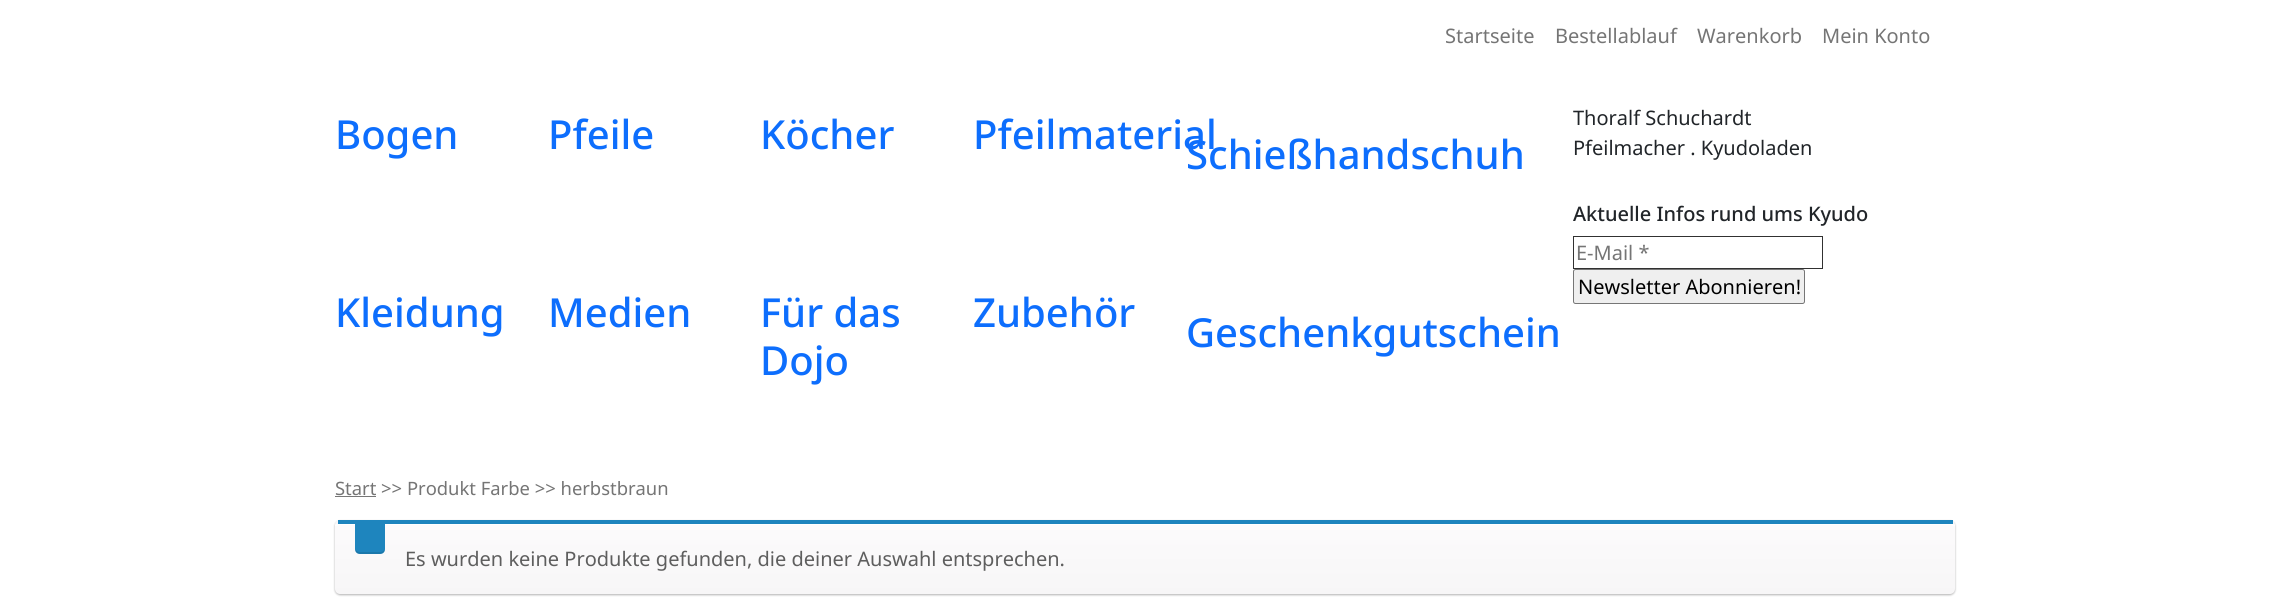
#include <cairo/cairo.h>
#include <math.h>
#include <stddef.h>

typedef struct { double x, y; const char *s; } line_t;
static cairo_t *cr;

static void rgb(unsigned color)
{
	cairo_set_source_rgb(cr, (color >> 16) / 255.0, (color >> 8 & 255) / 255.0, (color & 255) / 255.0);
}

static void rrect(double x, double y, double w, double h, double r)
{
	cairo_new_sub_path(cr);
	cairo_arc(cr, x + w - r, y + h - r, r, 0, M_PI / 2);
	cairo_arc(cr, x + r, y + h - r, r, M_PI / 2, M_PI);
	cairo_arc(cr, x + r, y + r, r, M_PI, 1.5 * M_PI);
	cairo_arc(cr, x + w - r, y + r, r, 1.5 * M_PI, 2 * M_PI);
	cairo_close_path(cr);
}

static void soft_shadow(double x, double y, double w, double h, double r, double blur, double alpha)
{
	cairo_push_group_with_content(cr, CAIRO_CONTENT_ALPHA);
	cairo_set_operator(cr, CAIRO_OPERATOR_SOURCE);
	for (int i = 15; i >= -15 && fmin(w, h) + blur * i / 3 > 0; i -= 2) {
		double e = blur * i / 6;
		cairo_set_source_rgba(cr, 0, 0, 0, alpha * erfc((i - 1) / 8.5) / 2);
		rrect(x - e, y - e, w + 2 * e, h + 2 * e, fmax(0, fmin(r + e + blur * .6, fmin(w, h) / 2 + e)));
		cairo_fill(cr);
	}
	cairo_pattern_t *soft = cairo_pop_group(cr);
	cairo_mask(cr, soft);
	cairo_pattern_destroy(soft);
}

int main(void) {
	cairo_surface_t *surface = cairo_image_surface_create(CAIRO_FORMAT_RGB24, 2290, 604);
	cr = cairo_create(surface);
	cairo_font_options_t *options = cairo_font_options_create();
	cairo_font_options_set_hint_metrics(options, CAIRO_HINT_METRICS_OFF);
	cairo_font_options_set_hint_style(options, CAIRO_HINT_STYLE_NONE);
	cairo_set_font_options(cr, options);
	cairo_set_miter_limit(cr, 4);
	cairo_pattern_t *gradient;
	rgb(0xffffff);
	cairo_paint(cr);
	cairo_rectangle(cr, 1573.5, 236.5, 249, 32);
	rgb(0x313131);
	cairo_set_line_width(cr, 1);
	cairo_stroke(cr);
	rgb(0xefefef);
	rrect(1573.5, 269.5, 231, 34, 2);
	cairo_fill_preserve(cr);
	rgb(0x767676);
	cairo_stroke(cr);
	rgb(0x777777);
	cairo_rectangle(cr, 335, 496, 41, 1);
	cairo_fill(cr);
	rgb(0x000000);
	soft_shadow(335, 521, 1620, 74, 5, 1, 0.3);
	cairo_save(cr);
	rrect(335, 520, 1620, 74, 5);
	cairo_clip(cr);
	gradient = cairo_pattern_create_linear(1145, 454, 1145, 524);
	cairo_pattern_add_color_stop_rgba(gradient, 0, 0.988, 0.984, 0.988, 1);
	cairo_pattern_add_color_stop_rgba(gradient, 1, 0.969, 0.965, 0.969, 1);
	cairo_set_source(cr, gradient);
	cairo_pattern_destroy(gradient);
	cairo_rectangle(cr, 335, 520, 1620, 4);
	cairo_fill(cr);
	gradient = cairo_pattern_create_linear(1145, 524, 1145, 594);
	cairo_pattern_add_color_stop_rgba(gradient, 0, 0.988, 0.984, 0.988, 1);
	cairo_pattern_add_color_stop_rgba(gradient, 1, 0.969, 0.965, 0.969, 1);
	cairo_set_source(cr, gradient);
	cairo_pattern_destroy(gradient);
	cairo_new_path(cr);
	cairo_move_to(cr, 335, 524);
	cairo_line_to(cr, 1955, 524);
	cairo_line_to(cr, 1955, 589);
	cairo_curve_to(cr, 1955, 592, 1953, 594, 1950, 594);
	cairo_line_to(cr, 340, 594);
	cairo_curve_to(cr, 337, 594, 335, 592, 335, 589);
	cairo_close_path(cr);
	cairo_fill(cr);
	cairo_restore(cr);
	rgb(0xffffff);
	cairo_new_path(cr);
	cairo_move_to(cr, 340, 525);
	cairo_line_to(cr, 1950, 525);
	cairo_line_to(cr, 1955, 526);
	cairo_curve_to(cr, 1955, 524, 1952, 524, 1950, 524);
	cairo_line_to(cr, 340, 524);
	cairo_curve_to(cr, 338, 524, 335, 524, 335, 526);
	cairo_close_path(cr);
	cairo_fill(cr);
	rgb(0x1e85be);
	cairo_rectangle(cr, 338, 520, 1615, 4);
	cairo_fill(cr);
	cairo_new_path(cr);
	cairo_move_to(cr, 355, 524);
	cairo_line_to(cr, 385, 524);
	cairo_line_to(cr, 385, 549);
	cairo_curve_to(cr, 385, 552, 383, 554, 380, 554);
	cairo_line_to(cr, 360, 554);
	cairo_curve_to(cr, 357, 554, 355, 552, 355, 549);
	cairo_close_path(cr);
	cairo_fill(cr);
	cairo_set_source_rgba(cr, 0, 0, 0, 0.1);
	cairo_new_path(cr);
	cairo_move_to(cr, 355, 548);
	cairo_curve_to(cr, 355, 554, 358.5, 554, 363.5, 554);
	cairo_line_to(cr, 376.5, 554);
	cairo_curve_to(cr, 381.5, 554, 385, 554, 385, 548);
	cairo_curve_to(cr, 385, 550, 383, 552, 380, 552);
	cairo_line_to(cr, 360, 552);
	cairo_curve_to(cr, 357, 552, 355, 550, 355, 548);
	cairo_close_path(cr);
	cairo_fill(cr);
	cairo_select_font_face(cr, "Noto Sans", CAIRO_FONT_SLANT_NORMAL, CAIRO_FONT_WEIGHT_NORMAL);
	cairo_set_font_size(cr, 20);
	rgb(0x757575);
	{
		static const line_t items[] = {
			{1445, 43, "Startseite"},
			{1555, 43, "Bestellablauf"},
			{1697, 43, "Warenkorb"},
			{1822, 43, "Mein Konto"},
		};
		for (size_t i = 0; i < sizeof items / sizeof *items; i++) {
			cairo_move_to(cr, items[i].x, items[i].y);
			cairo_show_text(cr, items[i].s);
		}
	}
	cairo_select_font_face(cr, "Noto Sans Medium", CAIRO_FONT_SLANT_NORMAL, CAIRO_FONT_WEIGHT_NORMAL);
	cairo_set_font_size(cr, 40);
	rgb(0x0d6efd);
	{
		static const line_t items[] = {
			{335, 149, "Bogen"},
			{548, 149, "Pfeile"},
			{760, 149, "Köcher"},
			{973, 149, "Pfeilmaterial"},
			{1186, 169, "Schießhandschuh"},
			{335, 327, "Kleidung"},
			{548, 327, "Medien"},
			{760, 327, "Für das"},
			{760, 375, "Dojo"},
			{973, 327, "Zubehör"},
			{1186, 347, "Geschenkgutschein"},
		};
		for (size_t i = 0; i < sizeof items / sizeof *items; i++) {
			cairo_move_to(cr, items[i].x, items[i].y);
			cairo_show_text(cr, items[i].s);
		}
	}
	cairo_select_font_face(cr, "Noto Sans", CAIRO_FONT_SLANT_NORMAL, CAIRO_FONT_WEIGHT_NORMAL);
	cairo_set_font_size(cr, 20);
	rgb(0x212529);
	cairo_move_to(cr, 1573, 125);
	cairo_show_text(cr, "Thoralf Schuchardt");
	cairo_move_to(cr, 1573, 155);
	cairo_show_text(cr, "Pfeilmacher . Kyudoladen");
	cairo_select_font_face(cr, "Noto Sans Medium", CAIRO_FONT_SLANT_NORMAL, CAIRO_FONT_WEIGHT_NORMAL);
	cairo_move_to(cr, 1573, 221);
	cairo_show_text(cr, "Aktuelle Infos rund ums Kyudo");
	cairo_select_font_face(cr, "Noto Sans", CAIRO_FONT_SLANT_NORMAL, CAIRO_FONT_WEIGHT_NORMAL);
	rgb(0x757575);
	cairo_move_to(cr, 1576, 260);
	cairo_show_text(cr, "E-Mail *");
	rgb(0x000000);
	cairo_move_to(cr, 1578, 294);
	cairo_show_text(cr, "Newsletter Abonnieren!");
	cairo_set_font_size(cr, 18.4);
	rgb(0x757575);
	cairo_move_to(cr, 335, 495);
	cairo_show_text(cr, "Start >> Produkt Farbe >> herbstbraun");
	cairo_set_font_size(cr, 20);
	rgb(0x5e5e5e);
	cairo_move_to(cr, 405, 566);
	cairo_show_text(cr, "Es wurden keine Produkte gefunden, die deiner Auswahl entsprechen.");
	cairo_surface_write_to_png(surface, "page.png");
	cairo_font_options_destroy(options);
	cairo_destroy(cr);
	cairo_surface_destroy(surface);
	return 0;
}
